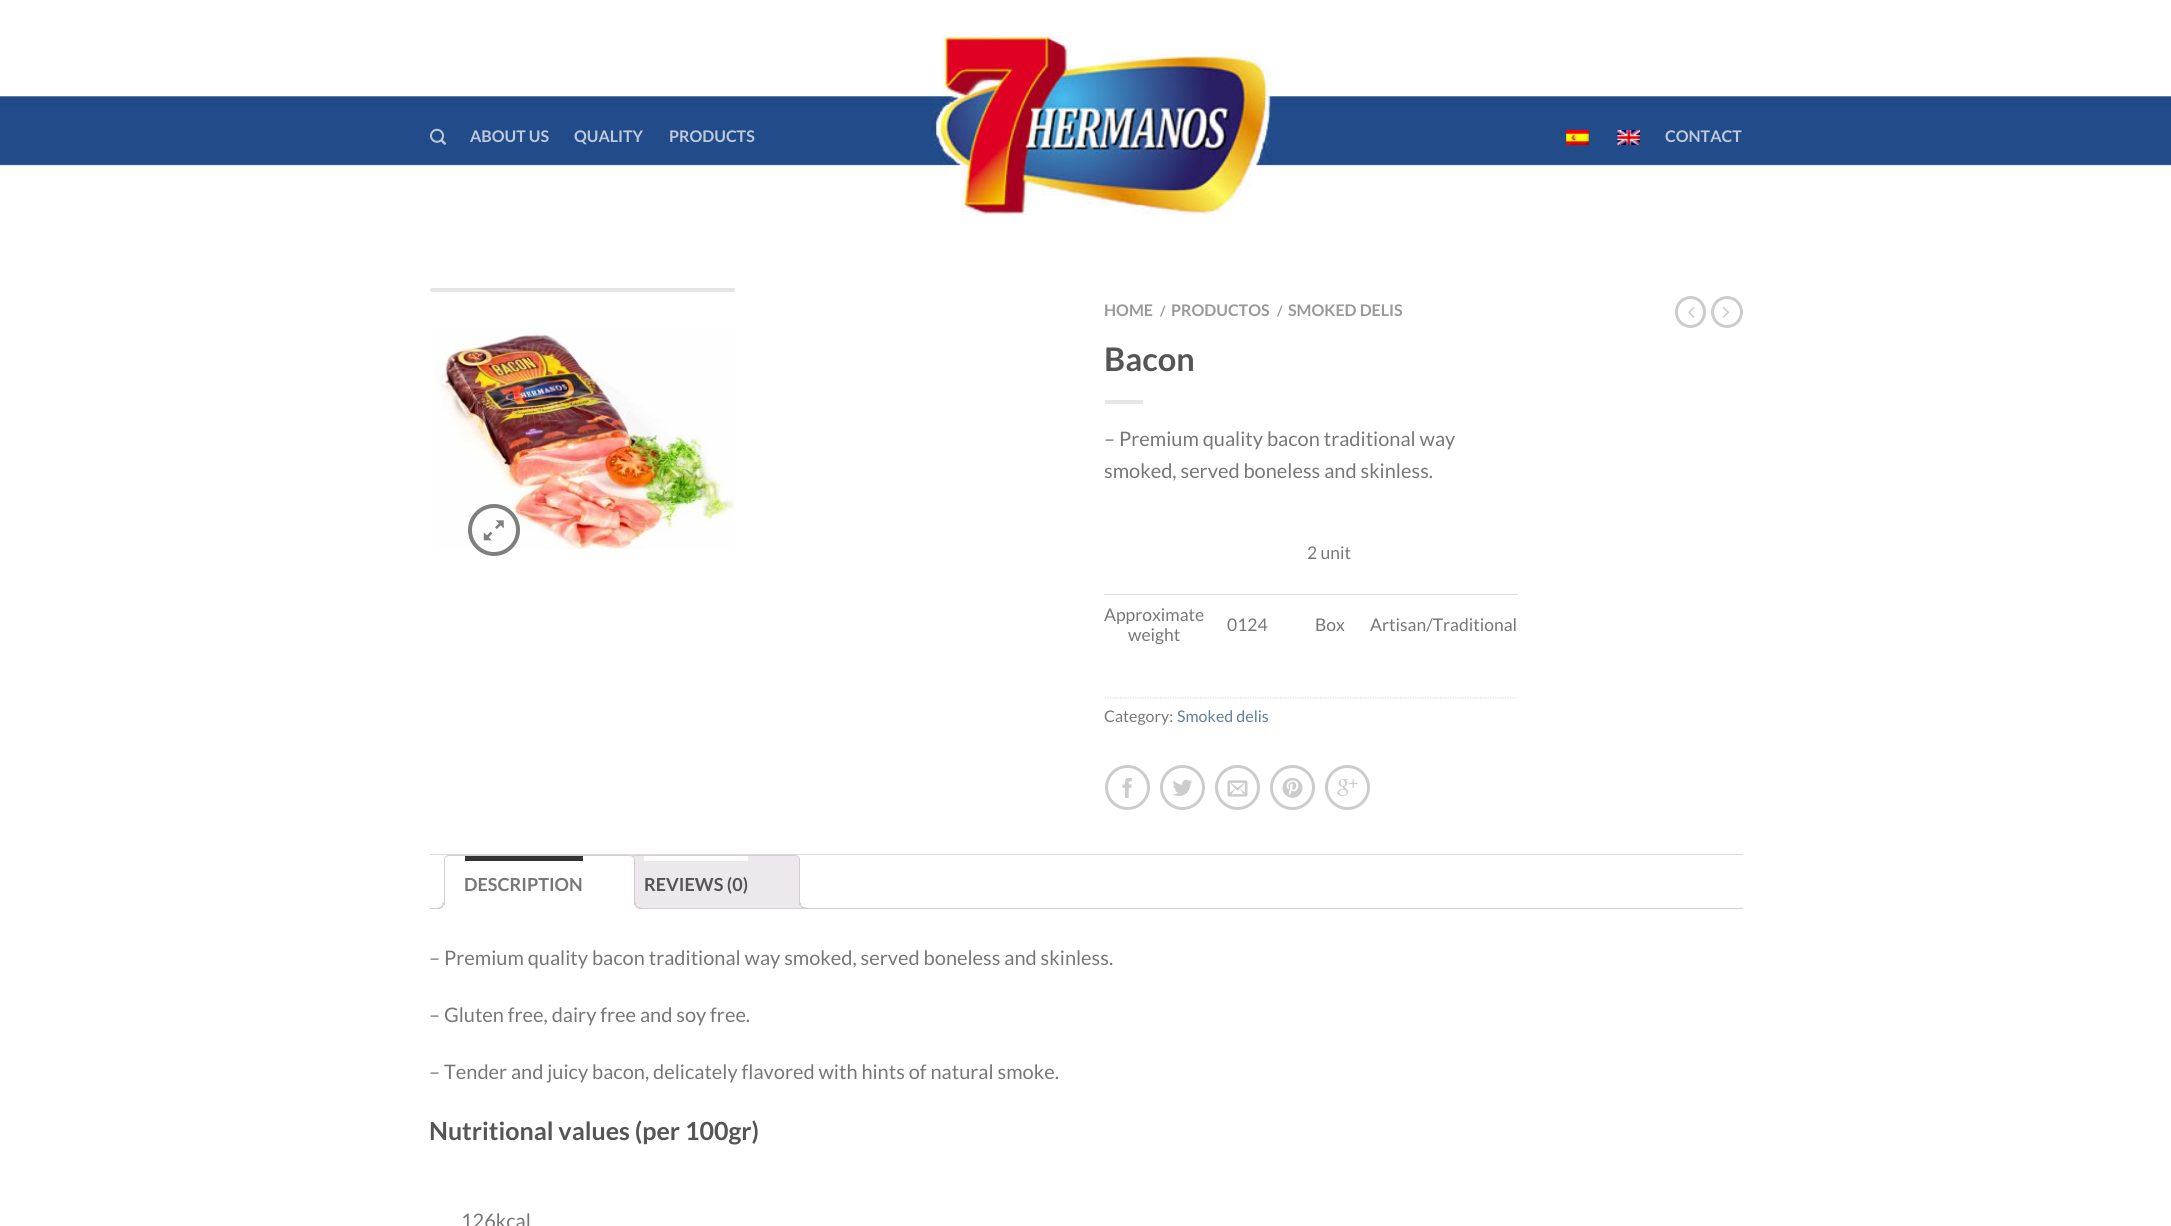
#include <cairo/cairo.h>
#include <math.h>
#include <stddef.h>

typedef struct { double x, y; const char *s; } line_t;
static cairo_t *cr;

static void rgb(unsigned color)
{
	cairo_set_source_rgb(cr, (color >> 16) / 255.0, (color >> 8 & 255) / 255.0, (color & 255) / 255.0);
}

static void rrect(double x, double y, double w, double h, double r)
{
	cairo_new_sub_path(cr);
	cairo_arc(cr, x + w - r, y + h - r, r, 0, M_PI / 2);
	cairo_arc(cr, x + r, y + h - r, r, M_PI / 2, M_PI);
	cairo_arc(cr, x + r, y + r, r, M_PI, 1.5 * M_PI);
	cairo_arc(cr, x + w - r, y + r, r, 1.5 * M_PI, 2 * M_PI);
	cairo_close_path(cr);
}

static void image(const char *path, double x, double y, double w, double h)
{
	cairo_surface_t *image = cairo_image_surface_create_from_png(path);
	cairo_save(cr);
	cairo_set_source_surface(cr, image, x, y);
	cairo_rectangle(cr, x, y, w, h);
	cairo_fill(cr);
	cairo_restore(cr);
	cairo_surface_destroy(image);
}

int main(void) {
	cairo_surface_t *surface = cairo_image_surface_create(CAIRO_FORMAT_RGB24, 2171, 1226);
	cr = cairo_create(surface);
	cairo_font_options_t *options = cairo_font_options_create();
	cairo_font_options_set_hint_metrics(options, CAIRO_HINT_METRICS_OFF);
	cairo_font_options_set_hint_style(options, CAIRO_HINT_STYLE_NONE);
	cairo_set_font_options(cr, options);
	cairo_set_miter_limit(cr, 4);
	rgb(0xffffff);
	cairo_paint(cr);
	image("img/1.png", 0, 35, 2171, 180);
	image("img/2.png", 430, 128, 16, 17);
	image("img/3.png", 1566, 130, 23, 15);
	image("img/4.png", 1617, 130, 23, 15);
	cairo_save(cr);
	cairo_rectangle(cr, 430, 288, 305, 325);
	cairo_clip(cr);
	rgb(0xe6e6e6);
	rrect(430, 288, 306, 4, 2);
	cairo_fill(cr);
	cairo_restore(cr);
	image("img/5.png", 435, 328, 300, 222);
	cairo_arc(cr, 494, 530, 24, 0, 2 * M_PI);
	cairo_set_source_rgba(cr, 0, 0, 0, 0.5);
	cairo_set_line_width(cr, 4);
	cairo_stroke(cr);
	image("img/6.png", 483, 520, 21, 21);
	rgb(0xe6e6e6);
	cairo_rectangle(cr, 1105, 400, 38, 4);
	cairo_fill(cr);
	rgb(0xdddddd);
	cairo_rectangle(cr, 1104, 594, 414, 1);
	cairo_fill(cr);
	cairo_new_path(cr);
	cairo_move_to(cr, 1105, 698);
	cairo_line_to(cr, 1516, 698);
	cairo_set_line_width(cr, 1.2);
	cairo_set_dash(cr, (double[]){1.25, 1.25}, 2, 0);
	cairo_stroke(cr);
	cairo_arc(cr, 1127.5, 787.5, 21, 0, 2 * M_PI);
	rgb(0xcccccc);
	cairo_set_line_width(cr, 3);
	cairo_set_dash(cr, NULL, 0, 0);
	cairo_stroke(cr);
	image("img/7.png", 1122, 777, 10, 21);
	cairo_arc(cr, 1182.5, 787.5, 21, 0, 2 * M_PI);
	cairo_stroke(cr);
	image("img/8.png", 1173, 779, 20, 17);
	cairo_arc(cr, 1237.5, 787.5, 21, 0, 2 * M_PI);
	cairo_stroke(cr);
	image("img/9.png", 1227, 780, 21, 17);
	cairo_arc(cr, 1292.5, 787.5, 21, 0, 2 * M_PI);
	cairo_stroke(cr);
	image("img/10.png", 1282, 777, 21, 21);
	cairo_arc(cr, 1347.5, 787.5, 21, 0, 2 * M_PI);
	cairo_stroke(cr);
	image("img/11.png", 1337, 779, 21, 17);
	rrect(1676.5, 297.5, 28, 29, 14);
	cairo_stroke(cr);
	image("img/12.png", 1688, 306, 7, 12);
	cairo_arc(cr, 1727, 312, 14.5, 0, 2 * M_PI);
	cairo_stroke(cr);
	image("img/13.png", 1722, 306, 7, 12);
	rgb(0xdddddd);
	cairo_rectangle(cr, 430, 854, 1313, 1);
	cairo_fill(cr);
	rgb(0xebe9eb);
	cairo_new_path(cr);
	cairo_move_to(cr, 628, 855.5);
	cairo_line_to(cr, 795, 855.5);
	cairo_curve_to(cr, 797.5, 855.5, 799.5, 857.5, 799.5, 860);
	cairo_line_to(cr, 799.5, 908.5);
	cairo_line_to(cr, 623.5, 908.5);
	cairo_line_to(cr, 623.5, 860);
	cairo_curve_to(cr, 623.5, 857.5, 625.5, 855.5, 628, 855.5);
	cairo_close_path(cr);
	cairo_fill_preserve(cr);
	rgb(0xd3ced2);
	cairo_set_line_width(cr, 1);
	cairo_stroke(cr);
	cairo_save(cr);
	cairo_rectangle(cr, 430, 855, 1313, 54);
	cairo_clip(cr);
	rgb(0xebe9eb);
	cairo_new_path(cr);
	cairo_move_to(cr, 798, 905);
	cairo_curve_to(cr, 798, 909, 800, 911, 804, 911);
	cairo_line_to(cr, 804, 908.5);
	cairo_curve_to(cr, 802, 908.5, 800.5, 907, 800, 905);
	cairo_close_path(cr);
	cairo_fill(cr);
	cairo_restore(cr);
	cairo_set_fill_rule(cr, CAIRO_FILL_RULE_EVEN_ODD);
	cairo_new_path(cr);
	cairo_move_to(cr, 800, 902.5);
	cairo_line_to(cr, 806, 902.5);
	cairo_line_to(cr, 806, 909);
	cairo_curve_to(cr, 803, 909, 800, 907.5, 800, 904);
	cairo_close_path(cr);
	cairo_move_to(cr, 801, 902.5);
	cairo_line_to(cr, 806, 902.5);
	cairo_line_to(cr, 806, 907.5);
	cairo_curve_to(cr, 804, 907.5, 801, 906.5, 801, 904);
	cairo_close_path(cr);
	cairo_fill(cr);
	cairo_rectangle(cr, 430, 908, 1313, 1);
	cairo_fill(cr);
	rgb(0xffffff);
	cairo_new_path(cr);
	cairo_move_to(cr, 449, 855);
	cairo_line_to(cr, 630, 855);
	cairo_curve_to(cr, 633, 855, 635, 857, 635, 860);
	cairo_line_to(cr, 635, 909);
	cairo_line_to(cr, 444, 909);
	cairo_line_to(cr, 444, 860);
	cairo_curve_to(cr, 444, 857, 446, 855, 449, 855);
	cairo_close_path(cr);
	cairo_fill(cr);
	rgb(0xd3ced2);
	cairo_set_fill_rule(cr, CAIRO_FILL_RULE_WINDING);
	cairo_new_path(cr);
	cairo_move_to(cr, 449, 855);
	cairo_curve_to(cr, 447, 855, 446, 856, 445, 857);
	cairo_line_to(cr, 446, 857);
	cairo_line_to(cr, 449, 856);
	cairo_line_to(cr, 630, 856);
	cairo_line_to(cr, 633, 857);
	cairo_line_to(cr, 634, 856);
	cairo_curve_to(cr, 633, 856, 632, 855, 630, 855);
	cairo_close_path(cr);
	cairo_fill(cr);
	cairo_new_path(cr);
	cairo_move_to(cr, 635, 909);
	cairo_line_to(cr, 635, 860);
	cairo_curve_to(cr, 635, 858, 634, 857, 634, 856);
	cairo_line_to(cr, 633, 857);
	cairo_line_to(cr, 634, 859);
	cairo_line_to(cr, 634, 908);
	cairo_close_path(cr);
	cairo_fill(cr);
	rgb(0xffffff);
	cairo_new_path(cr);
	cairo_move_to(cr, 635, 909);
	cairo_line_to(cr, 444, 909);
	cairo_line_to(cr, 445, 908);
	cairo_line_to(cr, 634, 908);
	cairo_close_path(cr);
	cairo_fill(cr);
	rgb(0xd3ced2);
	cairo_new_path(cr);
	cairo_move_to(cr, 445, 857);
	cairo_curve_to(cr, 444, 857, 444, 859, 444, 860);
	cairo_line_to(cr, 444, 908);
	cairo_line_to(cr, 445, 908);
	cairo_line_to(cr, 445, 860);
	cairo_curve_to(cr, 445, 859, 445, 858, 446, 857);
	cairo_close_path(cr);
	cairo_fill(cr);
	rgb(0x333333);
	cairo_rectangle(cr, 465, 856, 118, 5);
	cairo_fill(cr);
	cairo_save(cr);
	cairo_rectangle(cr, 430, 855, 1313, 54);
	cairo_clip(cr);
	rgb(0xffffff);
	cairo_new_path(cr);
	cairo_move_to(cr, 440, 908.5);
	cairo_line_to(cr, 440, 911);
	cairo_curve_to(cr, 444, 911, 446, 909, 446, 905);
	cairo_line_to(cr, 443.5, 905);
	cairo_curve_to(cr, 443, 907, 442, 908, 440, 908.5);
	cairo_close_path(cr);
	cairo_fill(cr);
	cairo_restore(cr);
	rgb(0xd3ced2);
	cairo_set_fill_rule(cr, CAIRO_FILL_RULE_EVEN_ODD);
	cairo_new_path(cr);
	cairo_move_to(cr, 437.5, 902.5);
	cairo_line_to(cr, 444, 902.5);
	cairo_curve_to(cr, 444, 907, 442, 909, 437.5, 909);
	cairo_close_path(cr);
	cairo_move_to(cr, 437.5, 902.5);
	cairo_line_to(cr, 442.5, 902.5);
	cairo_curve_to(cr, 442.5, 906, 441, 907.5, 437.5, 907.5);
	cairo_close_path(cr);
	cairo_fill(cr);
	cairo_save(cr);
	cairo_set_fill_rule(cr, CAIRO_FILL_RULE_WINDING);
	cairo_rectangle(cr, 430, 855, 1313, 54);
	cairo_clip(cr);
	rgb(0xffffff);
	cairo_new_path(cr);
	cairo_move_to(cr, 633, 905);
	cairo_curve_to(cr, 633, 909, 635, 911, 639, 911);
	cairo_line_to(cr, 639, 908.5);
	cairo_curve_to(cr, 637, 908.5, 635.5, 907, 635, 905);
	cairo_close_path(cr);
	cairo_fill(cr);
	cairo_restore(cr);
	cairo_new_path(cr);
	cairo_move_to(cr, 635, 902.5);
	cairo_line_to(cr, 641, 902.5);
	cairo_line_to(cr, 641, 909);
	cairo_curve_to(cr, 638, 909, 635, 907.5, 635, 904);
	cairo_close_path(cr);
	cairo_move_to(cr, 636, 902.5);
	cairo_line_to(cr, 641, 902.5);
	cairo_line_to(cr, 641, 907.5);
	cairo_curve_to(cr, 639, 907.5, 636, 906.5, 636, 904);
	cairo_close_path(cr);
	cairo_fill(cr);
	rgb(0xffffff);
	cairo_rectangle(cr, 644, 856, 104, 5);
	cairo_fill(cr);
	cairo_select_font_face(cr, "Lato", CAIRO_FONT_SLANT_NORMAL, CAIRO_FONT_WEIGHT_BOLD);
	cairo_set_font_size(cr, 16);
	rgb(0xbdc9dc);
	{
		static const line_t items[] = {
			{470, 142, "ABOUT US"},
			{574, 142, "QUALITY"},
			{669, 142, "PRODUCTS"},
			{1665, 142, "CONTACT"},
		};
		for (size_t i = 0; i < sizeof items / sizeof *items; i++) {
			cairo_move_to(cr, items[i].x, items[i].y);
			cairo_show_text(cr, items[i].s);
		}
	}
	rgb(0x999999);
	cairo_move_to(cr, 1104, 316);
	cairo_show_text(cr, "HOME");
	cairo_set_font_size(cr, 14);
	cairo_move_to(cr, 1160, 316);
	cairo_show_text(cr, "/");
	cairo_set_font_size(cr, 16);
	cairo_move_to(cr, 1171, 316);
	cairo_show_text(cr, "PRODUCTOS");
	cairo_set_font_size(cr, 14);
	cairo_move_to(cr, 1277, 316);
	cairo_show_text(cr, "/");
	cairo_set_font_size(cr, 16);
	cairo_move_to(cr, 1288, 316);
	cairo_show_text(cr, "SMOKED DELIS");
	cairo_set_font_size(cr, 32.5);
	rgb(0x555555);
	cairo_move_to(cr, 1104, 371);
	cairo_show_text(cr, "Bacon");
	cairo_select_font_face(cr, "Lato", CAIRO_FONT_SLANT_NORMAL, CAIRO_FONT_WEIGHT_NORMAL);
	cairo_set_font_size(cr, 20);
	rgb(0x777777);
	cairo_move_to(cr, 1104, 446);
	cairo_show_text(cr, "– Premium quality bacon traditional way");
	cairo_move_to(cr, 1104, 478);
	cairo_show_text(cr, "smoked, served boneless and skinless.");
	cairo_set_font_size(cr, 17.5);
	{
		static const line_t items[] = {
			{1307, 559, "2 unit"},
			{1104, 621, "Approximate"},
			{1128, 641, "weight"},
			{1227, 631, "0124"},
			{1315, 631, "Box"},
			{1370, 631, "Artisan/Traditional"},
		};
		for (size_t i = 0; i < sizeof items / sizeof *items; i++) {
			cairo_move_to(cr, items[i].x, items[i].y);
			cairo_show_text(cr, items[i].s);
		}
	}
	cairo_set_font_size(cr, 16);
	cairo_move_to(cr, 1104, 722);
	cairo_show_text(cr, "Category:");
	rgb(0x627f9a);
	cairo_move_to(cr, 1177, 722);
	cairo_show_text(cr, "Smoked delis");
	cairo_select_font_face(cr, "Lato", CAIRO_FONT_SLANT_NORMAL, CAIRO_FONT_WEIGHT_BOLD);
	cairo_set_font_size(cr, 18);
	rgb(0x777777);
	cairo_move_to(cr, 464, 891);
	cairo_show_text(cr, "DESCRIPTION");
	rgb(0x555555);
	cairo_move_to(cr, 644, 891);
	cairo_show_text(cr, "REVIEWS (0)");
	cairo_select_font_face(cr, "Lato", CAIRO_FONT_SLANT_NORMAL, CAIRO_FONT_WEIGHT_NORMAL);
	cairo_set_font_size(cr, 20);
	rgb(0x777777);
	{
		static const line_t items[] = {
			{429, 965, "– Premium quality bacon traditional way smoked, served boneless and skinless."},
			{429, 1022, "– Gluten free, dairy free and soy free."},
			{429, 1079, "– Tender and juicy bacon, delicately flavored with hints of natural smoke."},
		};
		for (size_t i = 0; i < sizeof items / sizeof *items; i++) {
			cairo_move_to(cr, items[i].x, items[i].y);
			cairo_show_text(cr, items[i].s);
		}
	}
	cairo_select_font_face(cr, "Lato", CAIRO_FONT_SLANT_NORMAL, CAIRO_FONT_WEIGHT_BOLD);
	cairo_set_font_size(cr, 25);
	rgb(0x555555);
	cairo_move_to(cr, 429, 1140);
	cairo_show_text(cr, "Nutritional values (per 100gr)");
	cairo_select_font_face(cr, "Lato", CAIRO_FONT_SLANT_NORMAL, CAIRO_FONT_WEIGHT_NORMAL);
	cairo_set_font_size(cr, 20);
	rgb(0x777777);
	cairo_move_to(cr, 461, 1228);
	cairo_show_text(cr, "126kcal");
	cairo_surface_write_to_png(surface, "page.png");
	cairo_font_options_destroy(options);
	cairo_destroy(cr);
	cairo_surface_destroy(surface);
	return 0;
}
